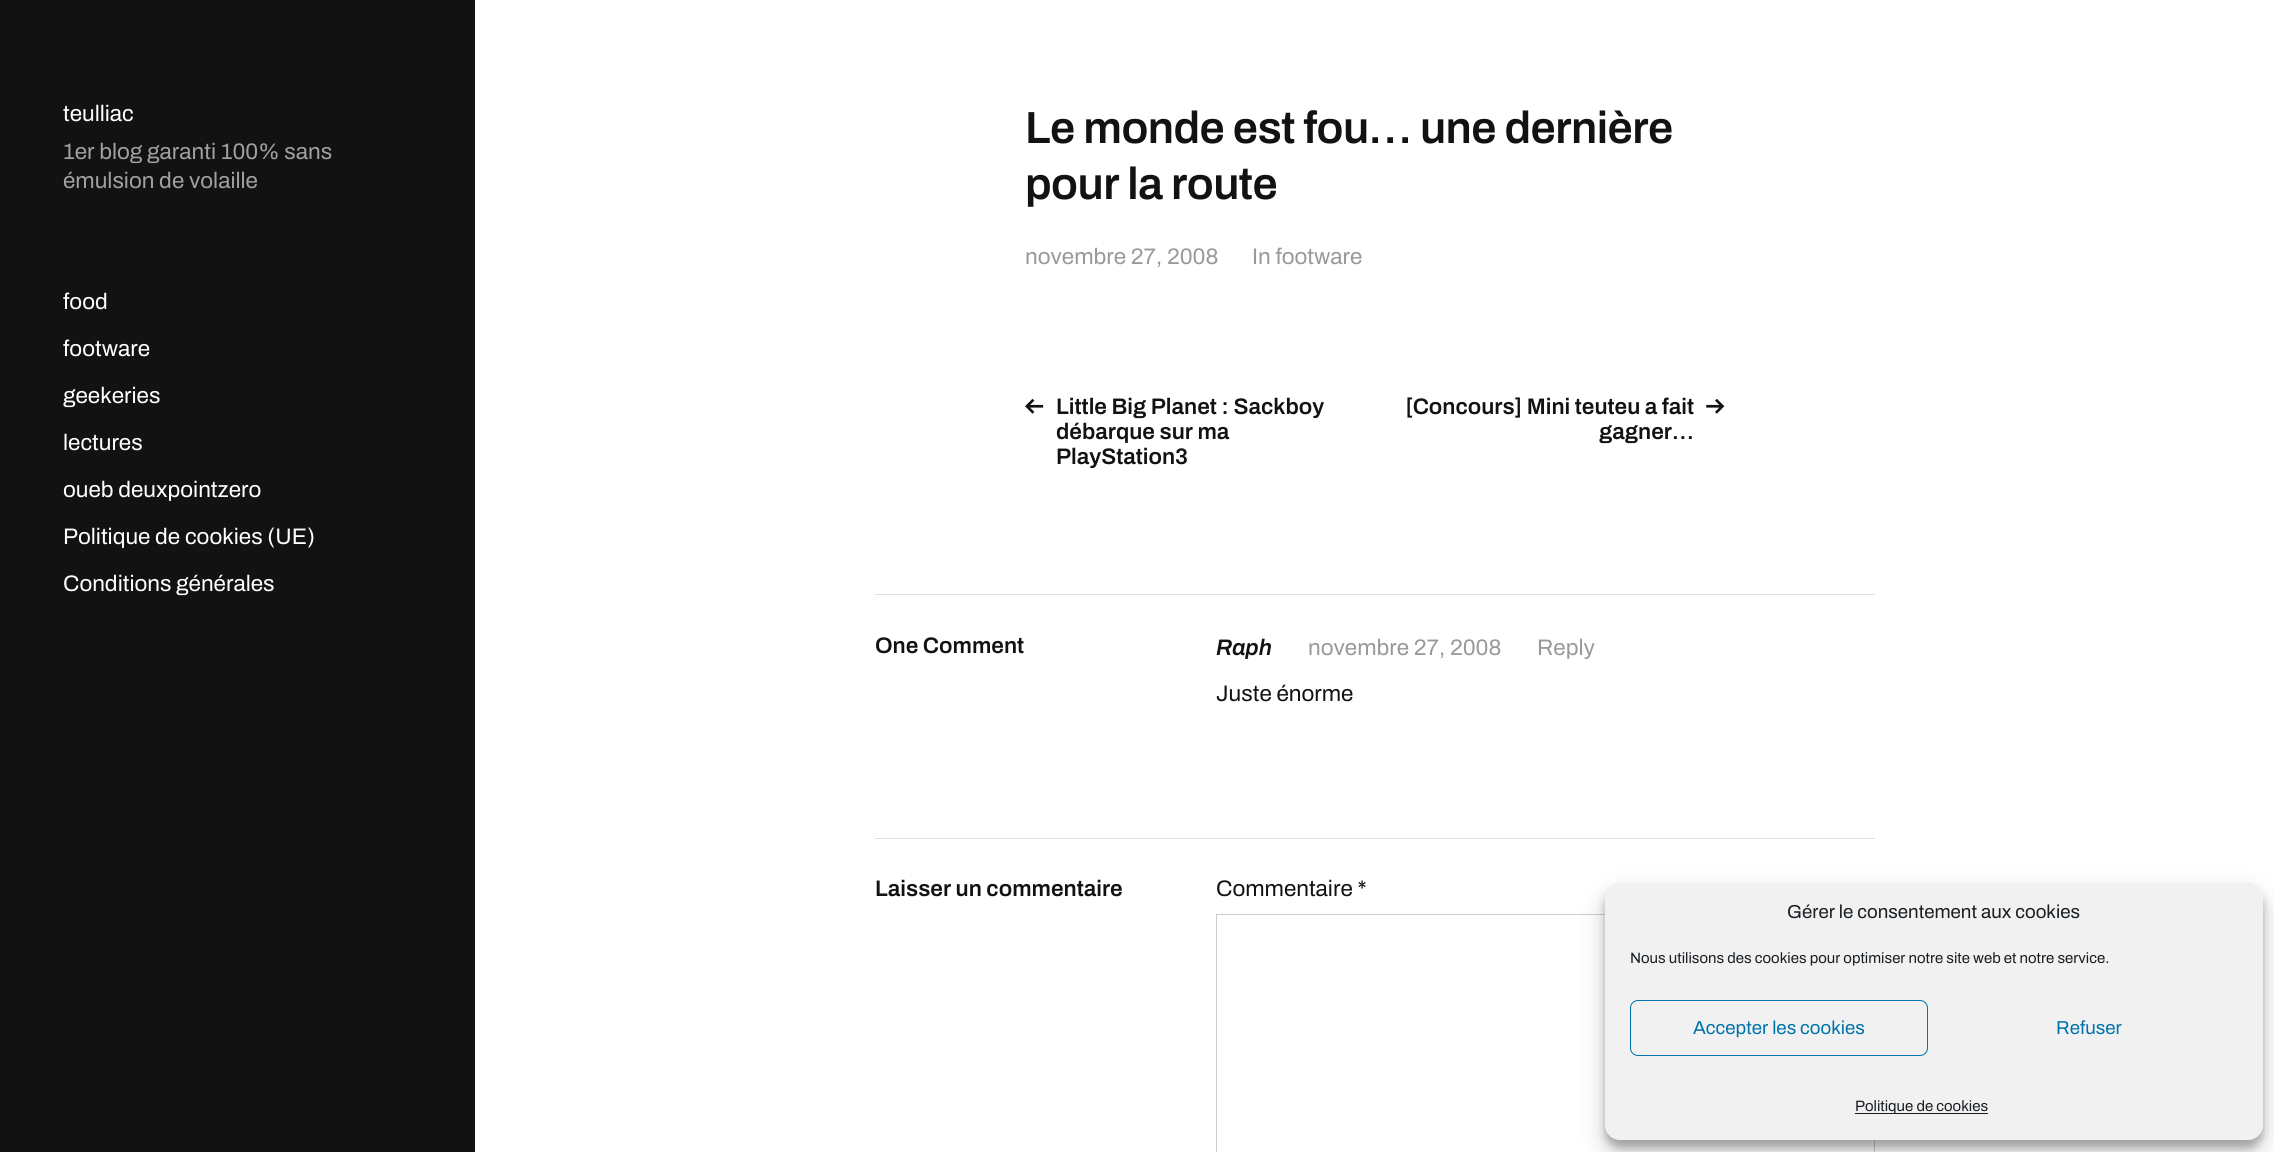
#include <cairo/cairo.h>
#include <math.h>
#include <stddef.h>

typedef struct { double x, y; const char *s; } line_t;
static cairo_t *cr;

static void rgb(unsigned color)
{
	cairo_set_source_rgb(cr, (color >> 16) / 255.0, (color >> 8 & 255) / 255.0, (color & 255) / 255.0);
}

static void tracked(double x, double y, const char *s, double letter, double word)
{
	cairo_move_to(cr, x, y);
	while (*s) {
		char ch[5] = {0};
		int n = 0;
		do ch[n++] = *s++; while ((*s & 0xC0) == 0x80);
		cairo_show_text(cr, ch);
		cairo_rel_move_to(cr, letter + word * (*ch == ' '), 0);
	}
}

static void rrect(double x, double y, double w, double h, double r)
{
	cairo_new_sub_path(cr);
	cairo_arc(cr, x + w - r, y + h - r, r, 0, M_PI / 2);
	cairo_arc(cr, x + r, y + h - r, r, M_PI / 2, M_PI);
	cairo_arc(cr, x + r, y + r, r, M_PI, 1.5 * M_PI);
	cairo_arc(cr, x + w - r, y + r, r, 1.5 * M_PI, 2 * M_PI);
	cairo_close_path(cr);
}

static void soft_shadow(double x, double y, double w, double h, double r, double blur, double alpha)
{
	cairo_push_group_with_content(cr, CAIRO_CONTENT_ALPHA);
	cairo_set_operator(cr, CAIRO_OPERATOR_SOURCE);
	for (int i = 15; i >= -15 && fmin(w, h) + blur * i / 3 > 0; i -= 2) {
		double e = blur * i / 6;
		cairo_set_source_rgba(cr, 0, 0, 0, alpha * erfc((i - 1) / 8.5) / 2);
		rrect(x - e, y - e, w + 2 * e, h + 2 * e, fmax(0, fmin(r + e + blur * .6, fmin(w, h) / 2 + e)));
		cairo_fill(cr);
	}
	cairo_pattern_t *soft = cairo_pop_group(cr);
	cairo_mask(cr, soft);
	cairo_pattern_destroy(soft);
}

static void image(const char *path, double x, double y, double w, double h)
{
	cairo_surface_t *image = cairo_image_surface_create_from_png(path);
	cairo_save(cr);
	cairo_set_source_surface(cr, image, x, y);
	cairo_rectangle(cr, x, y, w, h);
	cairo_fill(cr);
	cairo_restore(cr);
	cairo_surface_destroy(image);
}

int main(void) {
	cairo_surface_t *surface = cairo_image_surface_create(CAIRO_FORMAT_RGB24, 2274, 1152);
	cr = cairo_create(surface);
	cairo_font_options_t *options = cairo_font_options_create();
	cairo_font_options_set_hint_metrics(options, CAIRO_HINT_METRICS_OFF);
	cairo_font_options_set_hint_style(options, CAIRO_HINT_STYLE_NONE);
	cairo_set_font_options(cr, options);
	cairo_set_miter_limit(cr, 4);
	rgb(0xffffff);
	cairo_paint(cr);
	rgb(0x121212);
	cairo_rectangle(cr, 0, 0, 475, 1152);
	cairo_fill(cr);
	image("img/1.png", 1025, 399, 19, 15);
	image("img/2.png", 1706, 399, 19, 15);
	rgb(0xdfdfe0);
	cairo_rectangle(cr, 875, 594, 1000, 1);
	cairo_fill(cr);
	cairo_rectangle(cr, 875, 838, 1000, 1);
	cairo_fill(cr);
	cairo_rectangle(cr, 1216.5, 914.5, 658, 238);
	rgb(0xcccccc);
	cairo_set_line_width(cr, 1);
	cairo_stroke(cr);
	rgb(0x000000);
	soft_shadow(1605, 890, 658, 258, 15, 4, 0.23);
	soft_shadow(1605, 895, 658, 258, 15, 12.5, 0.19);
	rgb(0xf1f1f1);
	rrect(1605, 883, 658, 257, 15);
	cairo_fill(cr);
	rrect(1630.5, 1000.5, 297, 55, 7.5);
	rgb(0x0073aa);
	cairo_stroke(cr);
	rgb(0x191e23);
	cairo_rectangle(cr, 1855, 1113, 133, 1);
	cairo_fill(cr);
	cairo_select_font_face(cr, "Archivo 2 SemiBold", CAIRO_FONT_SLANT_NORMAL, CAIRO_FONT_WEIGHT_NORMAL);
	cairo_set_font_size(cr, 22.5);
	rgb(0xffffff);
	cairo_move_to(cr, 63, 121);
	cairo_show_text(cr, "teulliac");
	rgb(0xa0a0a0);
	cairo_move_to(cr, 63, 159);
	cairo_show_text(cr, "1er blog garanti 100% sans");
	cairo_move_to(cr, 63, 188);
	cairo_show_text(cr, "émulsion de volaille");
	rgb(0xffffff);
	{
		static const line_t items[] = {
			{63, 309, "food"},
			{63, 356, "footware"},
			{63, 403, "geekeries"},
			{63, 450, "lectures"},
			{63, 497, "oueb deuxpointzero"},
			{63, 544, "Politique de cookies (UE)"},
			{63, 591, "Conditions générales"},
		};
		for (size_t i = 0; i < sizeof items / sizeof *items; i++) {
			cairo_move_to(cr, items[i].x, items[i].y);
			cairo_show_text(cr, items[i].s);
		}
	}
	cairo_select_font_face(cr, "Archivo SemiBold", CAIRO_FONT_SLANT_NORMAL, CAIRO_FONT_WEIGHT_NORMAL);
	cairo_set_font_size(cr, 45);
	rgb(0x121212);
	tracked(1025, 143, "Le monde est fou… une dernière", -0.55, 0);
	tracked(1025, 199, "pour la route", -0.55, 0);
	cairo_select_font_face(cr, "Archivo 2 SemiBold", CAIRO_FONT_SLANT_NORMAL, CAIRO_FONT_WEIGHT_NORMAL);
	cairo_set_font_size(cr, 22.5);
	rgb(0x99999b);
	cairo_move_to(cr, 1025, 264);
	cairo_show_text(cr, "novembre 27, 2008");
	cairo_move_to(cr, 1252, 264);
	cairo_show_text(cr, "In footware");
	cairo_select_font_face(cr, "Archivo SemiBold", CAIRO_FONT_SLANT_NORMAL, CAIRO_FONT_WEIGHT_NORMAL);
	rgb(0x121212);
	{
		static const line_t items[] = {
			{1056, 414, "Little Big Planet : Sackboy"},
			{1056, 439, "débarque sur ma"},
			{1056, 464, "PlayStation3"},
			{1405, 414, "[Concours] Mini teuteu a fait"},
			{1599, 439, "gagner…"},
			{875, 653, "One Comment"},
		};
		for (size_t i = 0; i < sizeof items / sizeof *items; i++) {
			cairo_move_to(cr, items[i].x, items[i].y);
			cairo_show_text(cr, items[i].s);
		}
	}
	cairo_select_font_face(cr, "Archivo SemiBold", CAIRO_FONT_SLANT_ITALIC, CAIRO_FONT_WEIGHT_NORMAL);
	cairo_move_to(cr, 1216, 655);
	cairo_show_text(cr, "Raph");
	cairo_select_font_face(cr, "Archivo 2 SemiBold", CAIRO_FONT_SLANT_NORMAL, CAIRO_FONT_WEIGHT_NORMAL);
	rgb(0x99999b);
	cairo_move_to(cr, 1308, 655);
	cairo_show_text(cr, "novembre 27, 2008");
	cairo_move_to(cr, 1537, 655);
	cairo_show_text(cr, "Reply");
	rgb(0x121212);
	cairo_move_to(cr, 1216, 701);
	cairo_show_text(cr, "Juste énorme");
	cairo_select_font_face(cr, "Archivo SemiBold", CAIRO_FONT_SLANT_NORMAL, CAIRO_FONT_WEIGHT_NORMAL);
	cairo_move_to(cr, 875, 896);
	cairo_show_text(cr, "Laisser un commentaire");
	cairo_select_font_face(cr, "Archivo 2 SemiBold", CAIRO_FONT_SLANT_NORMAL, CAIRO_FONT_WEIGHT_NORMAL);
	cairo_move_to(cr, 1216, 896);
	cairo_show_text(cr, "Commentaire *");
	cairo_set_font_size(cr, 18.75);
	rgb(0x191e23);
	cairo_move_to(cr, 1787, 918);
	cairo_show_text(cr, "Gérer le consentement aux cookies");
	cairo_set_font_size(cr, 15);
	cairo_move_to(cr, 1630, 963);
	cairo_show_text(cr, "Nous utilisons des cookies pour optimiser notre site web et notre service.");
	cairo_set_font_size(cr, 18.75);
	rgb(0x0073aa);
	cairo_move_to(cr, 1693, 1034);
	cairo_show_text(cr, "Accepter les cookies");
	cairo_move_to(cr, 2056, 1034);
	cairo_show_text(cr, "Refuser");
	cairo_set_font_size(cr, 15);
	rgb(0x191e23);
	cairo_move_to(cr, 1855, 1111);
	cairo_show_text(cr, "Politique de cookies");
	cairo_surface_write_to_png(surface, "page.png");
	cairo_font_options_destroy(options);
	cairo_destroy(cr);
	cairo_surface_destroy(surface);
	return 0;
}
